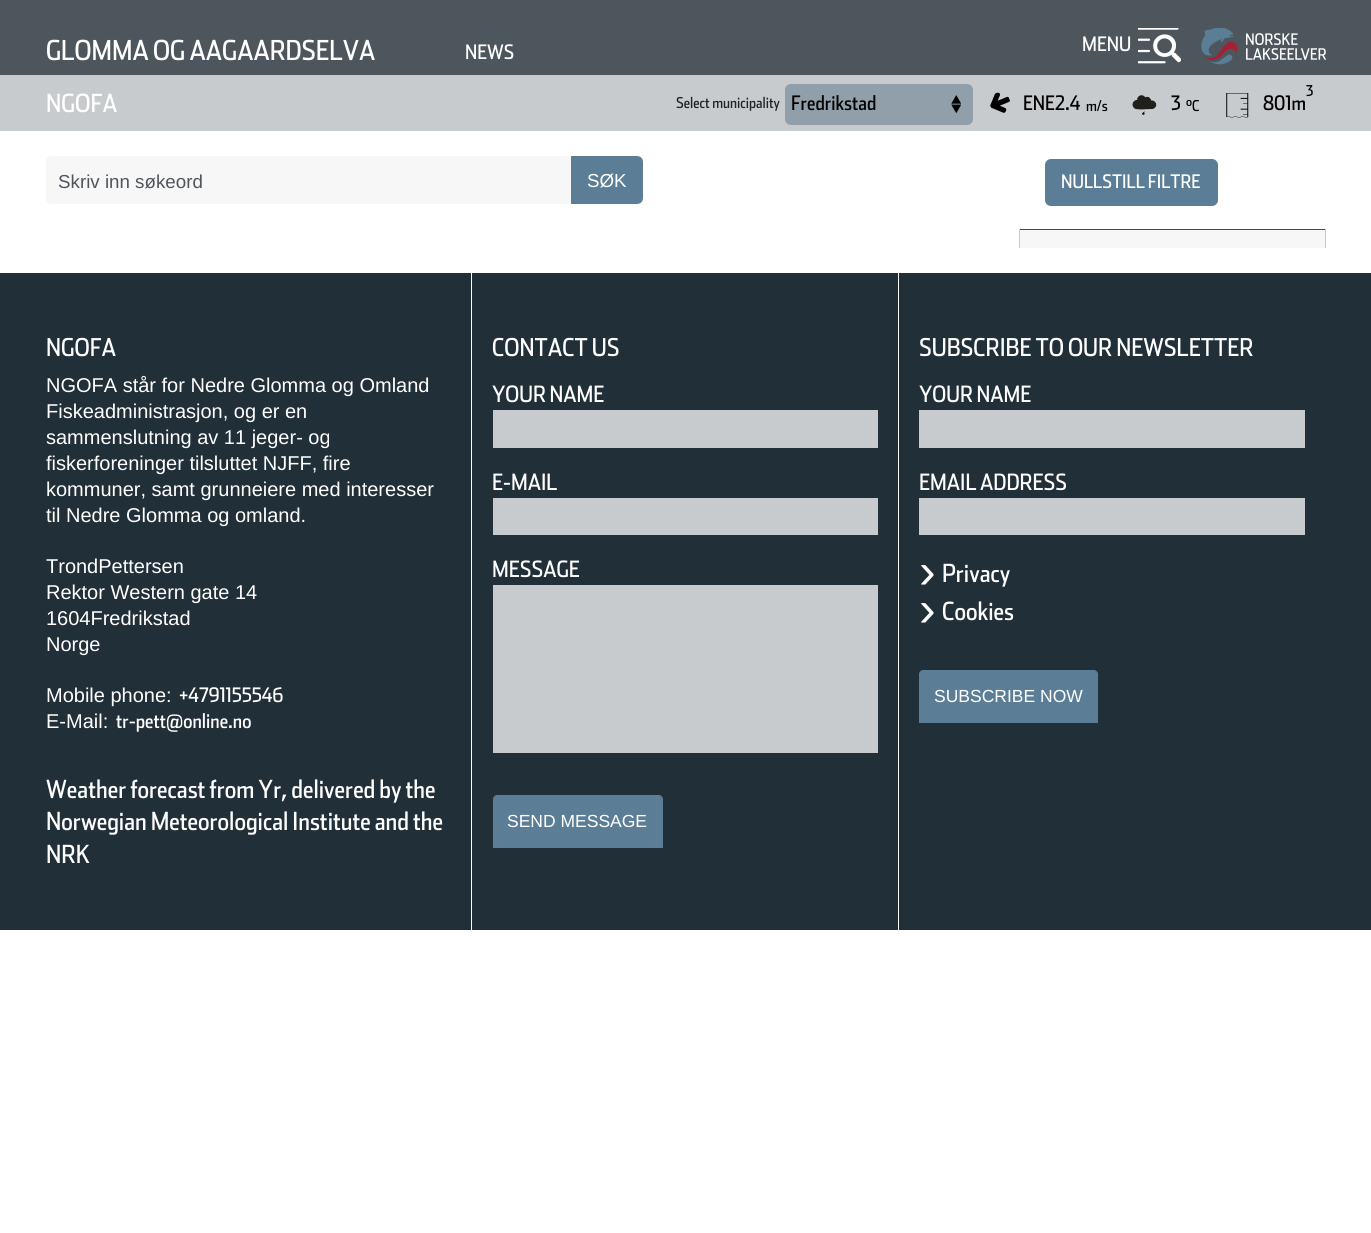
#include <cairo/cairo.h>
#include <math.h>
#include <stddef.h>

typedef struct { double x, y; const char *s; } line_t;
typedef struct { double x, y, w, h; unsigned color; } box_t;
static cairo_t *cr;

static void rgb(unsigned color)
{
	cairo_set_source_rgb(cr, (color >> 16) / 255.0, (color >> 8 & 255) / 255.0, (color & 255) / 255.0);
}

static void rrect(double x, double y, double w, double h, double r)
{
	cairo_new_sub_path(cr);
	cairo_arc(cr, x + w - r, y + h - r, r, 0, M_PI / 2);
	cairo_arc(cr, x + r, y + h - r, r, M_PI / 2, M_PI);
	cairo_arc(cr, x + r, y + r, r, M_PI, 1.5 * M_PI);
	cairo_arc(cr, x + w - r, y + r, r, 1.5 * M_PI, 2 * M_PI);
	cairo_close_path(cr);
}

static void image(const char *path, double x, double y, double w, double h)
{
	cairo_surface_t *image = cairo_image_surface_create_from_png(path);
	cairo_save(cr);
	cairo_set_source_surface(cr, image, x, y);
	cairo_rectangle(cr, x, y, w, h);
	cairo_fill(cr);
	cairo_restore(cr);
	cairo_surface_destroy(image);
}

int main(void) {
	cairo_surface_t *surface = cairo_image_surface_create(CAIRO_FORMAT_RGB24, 1371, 1233);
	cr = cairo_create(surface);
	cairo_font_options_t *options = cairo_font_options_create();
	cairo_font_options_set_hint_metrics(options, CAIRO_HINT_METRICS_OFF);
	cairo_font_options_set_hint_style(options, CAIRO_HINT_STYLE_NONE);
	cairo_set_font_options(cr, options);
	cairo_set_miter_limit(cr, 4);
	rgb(0xffffff);
	cairo_paint(cr);
	rgb(0x4e565d);
	cairo_rectangle(cr, 0, 0, 1371, 75);
	cairo_fill(cr);
	image("img/1.png", 1138, 28, 43, 36);
	image("img/2.png", 1201, 28, 125, 37);
	rgb(0xc7cbcd);
	cairo_rectangle(cr, 0, 75, 1371, 56);
	cairo_fill(cr);
	rgb(0x909faa);
	rrect(785, 84, 188, 41, 6);
	cairo_fill(cr);
	image("img/3.png", 951, 95, 10, 19);
	image("img/4.png", 990, 92, 20, 21);
	image("img/5.png", 1132, 95, 25, 20);
	image("img/6.png", 1226, 93, 23, 25);
	rgb(0xf7f7f8);
	cairo_new_path(cr);
	cairo_move_to(cr, 52, 156);
	cairo_line_to(cr, 571, 156);
	cairo_line_to(cr, 571, 204);
	cairo_line_to(cr, 52, 204);
	cairo_curve_to(cr, 48.5, 204, 46, 201.5, 46, 198);
	cairo_line_to(cr, 46, 162);
	cairo_curve_to(cr, 46, 158.5, 48.5, 156, 52, 156);
	cairo_close_path(cr);
	cairo_fill(cr);
	rgb(0x5b7e96);
	cairo_new_path(cr);
	cairo_move_to(cr, 571, 156);
	cairo_line_to(cr, 637, 156);
	cairo_curve_to(cr, 640.5, 156, 643, 158.5, 643, 162);
	cairo_line_to(cr, 643, 198);
	cairo_curve_to(cr, 643, 201.5, 640.5, 204, 637, 204);
	cairo_line_to(cr, 571, 204);
	cairo_close_path(cr);
	cairo_fill(cr);
	rrect(1045, 159, 173, 47, 6);
	cairo_fill(cr);
	{
		static const box_t items[] = {
			{1020, 230, 305, 18, 0xf7f7f8},
			{1019, 229, 307, 1, 0xa32035},
			{1325, 229, 1, 19, 0xc7cbcd},
			{1019, 229, 1, 19, 0xc7cbcd},
			{0, 273, 1371, 657, 0x212f39},
			{471, 273, 1, 657, 0xffffff},
			{898, 273, 1, 657, 0xffffff},
			{493, 410, 385, 38, 0xc7cbcd},
			{493, 498, 385, 37, 0xc7cbcd},
			{493, 585, 385, 168, 0xc7cbcd},
		};
		for (size_t i = 0; i < sizeof items / sizeof *items; i++) {
			rgb(items[i].color);
			cairo_rectangle(cr, items[i].x, items[i].y, items[i].w, items[i].h);
			cairo_fill(cr);
		}
	}
	rgb(0x5b7e96);
	cairo_new_path(cr);
	cairo_move_to(cr, 497, 795);
	cairo_line_to(cr, 659, 795);
	cairo_curve_to(cr, 661, 795, 663, 797, 663, 799);
	cairo_line_to(cr, 663, 848);
	cairo_line_to(cr, 493, 848);
	cairo_line_to(cr, 493, 799);
	cairo_curve_to(cr, 493, 797, 495, 795, 497, 795);
	cairo_close_path(cr);
	cairo_fill(cr);
	rgb(0xc7cbcd);
	cairo_rectangle(cr, 919, 410, 386, 38);
	cairo_fill(cr);
	cairo_rectangle(cr, 919, 498, 386, 37);
	cairo_fill(cr);
	rgb(0x5b7e96);
	cairo_new_path(cr);
	cairo_move_to(cr, 923, 670);
	cairo_line_to(cr, 1094, 670);
	cairo_curve_to(cr, 1096, 670, 1098, 672, 1098, 674);
	cairo_line_to(cr, 1098, 723);
	cairo_line_to(cr, 919, 723);
	cairo_line_to(cr, 919, 674);
	cairo_curve_to(cr, 919, 672, 921, 670, 923, 670);
	cairo_close_path(cr);
	cairo_fill(cr);
	cairo_select_font_face(cr, "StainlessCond", CAIRO_FONT_SLANT_NORMAL, CAIRO_FONT_WEIGHT_NORMAL);
	cairo_set_font_size(cr, 27.5);
	rgb(0xffffff);
	cairo_move_to(cr, 46, 60);
	cairo_show_text(cr, "GLOMMA OG AAGAARDSELVA");
	cairo_set_font_size(cr, 20);
	cairo_move_to(cr, 465, 59);
	cairo_show_text(cr, "NEWS");
	cairo_move_to(cr, 1082, 51);
	cairo_show_text(cr, "MENU");
	cairo_set_font_size(cr, 25);
	cairo_move_to(cr, 46, 112);
	cairo_show_text(cr, "NGOFA");
	cairo_set_font_size(cr, 15);
	rgb(0x212529);
	cairo_move_to(cr, 676, 108);
	cairo_show_text(cr, "Select municipality");
	cairo_set_font_size(cr, 20);
	rgb(0x000000);
	cairo_move_to(cr, 791, 110);
	cairo_show_text(cr, "Fredrikstad");
	cairo_move_to(cr, 1023, 110);
	cairo_show_text(cr, "ENE2.4");
	cairo_set_font_size(cr, 15);
	cairo_move_to(cr, 1086, 111);
	cairo_show_text(cr, "m/s");
	cairo_set_font_size(cr, 20);
	cairo_move_to(cr, 1171, 110);
	cairo_show_text(cr, "3");
	cairo_set_font_size(cr, 15);
	cairo_move_to(cr, 1186, 111);
	cairo_show_text(cr, "°C");
	cairo_move_to(cr, 1306, 96);
	cairo_show_text(cr, "3");
	cairo_set_font_size(cr, 20);
	cairo_move_to(cr, 1263, 110);
	cairo_show_text(cr, "801m");
	cairo_select_font_face(cr, "Liberation Sans", CAIRO_FONT_SLANT_NORMAL, CAIRO_FONT_WEIGHT_NORMAL);
	cairo_set_font_size(cr, 18.75);
	rgb(0x4e565d);
	cairo_move_to(cr, 58, 188);
	cairo_show_text(cr, "Skriv inn søkeord");
	rgb(0xffffff);
	cairo_move_to(cr, 587, 187);
	cairo_show_text(cr, "SØK");
	cairo_select_font_face(cr, "StainlessCond", CAIRO_FONT_SLANT_NORMAL, CAIRO_FONT_WEIGHT_NORMAL);
	cairo_move_to(cr, 1061, 188);
	cairo_show_text(cr, "NULLSTILL FILTRE");
	cairo_set_font_size(cr, 24.6);
	cairo_move_to(cr, 46, 356);
	cairo_show_text(cr, "NGOFA");
	cairo_select_font_face(cr, "Liberation Sans", CAIRO_FONT_SLANT_NORMAL, CAIRO_FONT_WEIGHT_NORMAL);
	cairo_set_font_size(cr, 20);
	{
		static const line_t items[] = {
			{46, 392, "NGOFA står for Nedre Glomma og Omland"},
			{46, 418, "Fiskeadministrasjon, og er en"},
			{46, 444, "sammenslutning av 11 jeger- og"},
			{46, 470, "fiskerforeninger tilsluttet NJFF, fire"},
			{46, 496, "kommuner, samt grunneiere med interesser"},
			{46, 522, "til Nedre Glomma og omland."},
			{46, 573, "TrondPettersen"},
			{46, 599, "Rektor Western gate 14"},
			{46, 625, "1604Fredrikstad"},
			{46, 651, "Norge"},
			{46, 702, "Mobile phone:"},
		};
		for (size_t i = 0; i < sizeof items / sizeof *items; i++) {
			cairo_move_to(cr, items[i].x, items[i].y);
			cairo_show_text(cr, items[i].s);
		}
	}
	cairo_select_font_face(cr, "StainlessCond", CAIRO_FONT_SLANT_NORMAL, CAIRO_FONT_WEIGHT_NORMAL);
	cairo_move_to(cr, 179, 702);
	cairo_show_text(cr, "+4791155546");
	cairo_select_font_face(cr, "Liberation Sans", CAIRO_FONT_SLANT_NORMAL, CAIRO_FONT_WEIGHT_NORMAL);
	cairo_move_to(cr, 46, 728);
	cairo_show_text(cr, "E-Mail:");
	cairo_select_font_face(cr, "StainlessCond", CAIRO_FONT_SLANT_NORMAL, CAIRO_FONT_WEIGHT_NORMAL);
	cairo_move_to(cr, 116, 728);
	cairo_show_text(cr, "tr-pett@online.no");
	cairo_set_font_size(cr, 25);
	{
		static const line_t items[] = {
			{46, 798, "Weather forecast from Yr, delivered by the"},
			{46, 830, "Norwegian Meteorological Institute and the"},
			{46, 863, "NRK"},
		};
		for (size_t i = 0; i < sizeof items / sizeof *items; i++) {
			cairo_move_to(cr, items[i].x, items[i].y);
			cairo_show_text(cr, items[i].s);
		}
	}
	cairo_set_font_size(cr, 24.6);
	cairo_move_to(cr, 492, 356);
	cairo_show_text(cr, "CONTACT US");
	cairo_set_font_size(cr, 22.5);
	{
		static const line_t items[] = {
			{492, 402, "YOUR NAME"},
			{492, 490, "E-MAIL"},
			{492, 577, "MESSAGE"},
		};
		for (size_t i = 0; i < sizeof items / sizeof *items; i++) {
			cairo_move_to(cr, items[i].x, items[i].y);
			cairo_show_text(cr, items[i].s);
		}
	}
	cairo_select_font_face(cr, "Liberation Sans", CAIRO_FONT_SLANT_NORMAL, CAIRO_FONT_WEIGHT_NORMAL);
	cairo_set_font_size(cr, 17.5);
	cairo_move_to(cr, 507, 827);
	cairo_show_text(cr, "SEND MESSAGE");
	cairo_select_font_face(cr, "StainlessCond", CAIRO_FONT_SLANT_NORMAL, CAIRO_FONT_WEIGHT_NORMAL);
	cairo_set_font_size(cr, 24.6);
	cairo_move_to(cr, 919, 356);
	cairo_show_text(cr, "SUBSCRIBE TO OUR NEWSLETTER");
	cairo_set_font_size(cr, 22.5);
	cairo_move_to(cr, 919, 402);
	cairo_show_text(cr, "YOUR NAME");
	cairo_move_to(cr, 919, 490);
	cairo_show_text(cr, "EMAIL ADDRESS");
	cairo_select_font_face(cr, "Liberation Sans", CAIRO_FONT_SLANT_NORMAL, CAIRO_FONT_WEIGHT_NORMAL);
	cairo_set_font_size(cr, 50);
	cairo_move_to(cr, 919, 588);
	cairo_show_text(cr, "›");
	cairo_select_font_face(cr, "StainlessCond", CAIRO_FONT_SLANT_NORMAL, CAIRO_FONT_WEIGHT_NORMAL);
	cairo_set_font_size(cr, 25);
	cairo_move_to(cr, 942, 582);
	cairo_show_text(cr, "Privacy");
	cairo_select_font_face(cr, "Liberation Sans", CAIRO_FONT_SLANT_NORMAL, CAIRO_FONT_WEIGHT_NORMAL);
	cairo_set_font_size(cr, 50);
	cairo_move_to(cr, 919, 626);
	cairo_show_text(cr, "›");
	cairo_select_font_face(cr, "StainlessCond", CAIRO_FONT_SLANT_NORMAL, CAIRO_FONT_WEIGHT_NORMAL);
	cairo_set_font_size(cr, 25);
	cairo_move_to(cr, 942, 620);
	cairo_show_text(cr, "Cookies");
	cairo_select_font_face(cr, "Liberation Sans", CAIRO_FONT_SLANT_NORMAL, CAIRO_FONT_WEIGHT_NORMAL);
	cairo_set_font_size(cr, 17.5);
	cairo_move_to(cr, 934, 702);
	cairo_show_text(cr, "SUBSCRIBE NOW");
	cairo_surface_write_to_png(surface, "page.png");
	cairo_font_options_destroy(options);
	cairo_destroy(cr);
	cairo_surface_destroy(surface);
	return 0;
}
